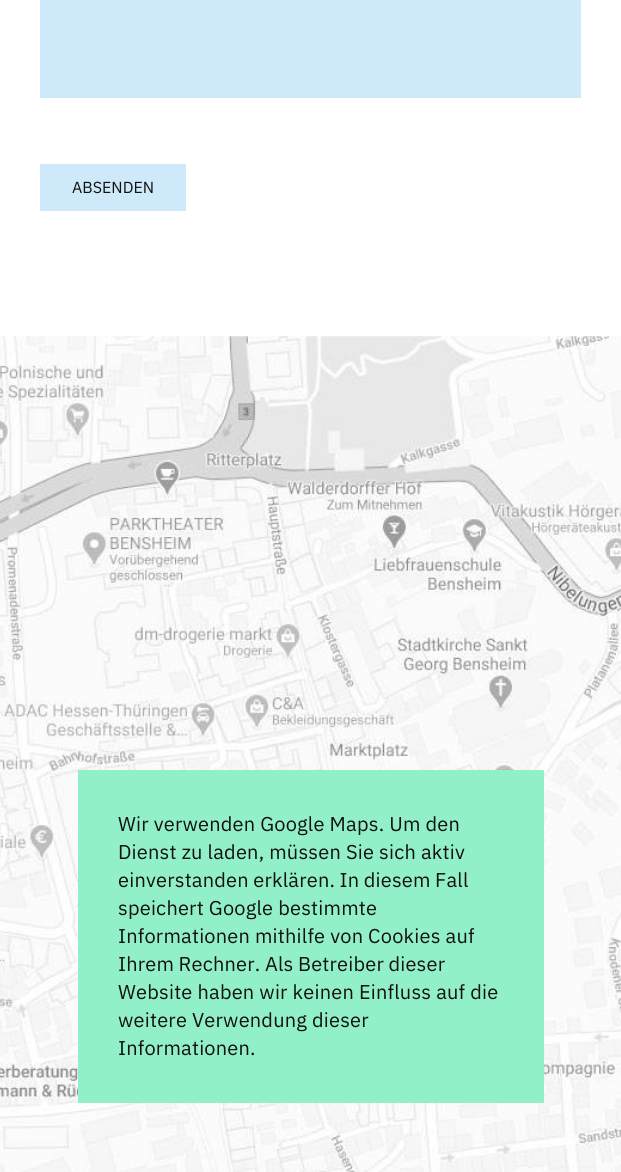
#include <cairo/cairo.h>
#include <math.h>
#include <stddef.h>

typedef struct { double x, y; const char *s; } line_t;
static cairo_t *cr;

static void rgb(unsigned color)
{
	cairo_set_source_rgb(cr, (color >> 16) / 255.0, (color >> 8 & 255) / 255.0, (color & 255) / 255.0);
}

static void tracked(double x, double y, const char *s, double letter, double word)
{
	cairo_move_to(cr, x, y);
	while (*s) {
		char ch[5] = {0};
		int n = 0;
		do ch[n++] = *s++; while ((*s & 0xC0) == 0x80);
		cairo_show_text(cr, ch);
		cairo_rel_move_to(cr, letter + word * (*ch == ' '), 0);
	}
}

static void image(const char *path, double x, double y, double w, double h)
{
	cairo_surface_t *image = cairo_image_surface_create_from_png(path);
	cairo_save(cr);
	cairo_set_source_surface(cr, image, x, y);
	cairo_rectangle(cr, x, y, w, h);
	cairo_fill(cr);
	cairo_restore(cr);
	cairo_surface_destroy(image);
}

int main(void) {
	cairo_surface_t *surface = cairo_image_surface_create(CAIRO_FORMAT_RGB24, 621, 1172);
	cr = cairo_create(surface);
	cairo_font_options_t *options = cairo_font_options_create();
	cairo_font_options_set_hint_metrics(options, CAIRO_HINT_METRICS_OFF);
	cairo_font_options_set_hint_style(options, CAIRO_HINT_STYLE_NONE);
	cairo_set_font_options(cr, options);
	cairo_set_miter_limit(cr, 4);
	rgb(0xffffff);
	cairo_paint(cr);
	rgb(0xcee9f9);
	cairo_rectangle(cr, 40, 0, 541, 98);
	cairo_fill(cr);
	cairo_rectangle(cr, 40, 164, 146, 47);
	cairo_fill(cr);
	image("img/1.png", 0, 336, 621, 836);
	rgb(0x92f0c9);
	cairo_rectangle(cr, 78, 770, 466, 333);
	cairo_fill(cr);
	cairo_select_font_face(cr, "IBM Plex Sans", CAIRO_FONT_SLANT_NORMAL, CAIRO_FONT_WEIGHT_NORMAL);
	cairo_set_font_size(cr, 16);
	rgb(0x111111);
	cairo_move_to(cr, 72, 193);
	cairo_show_text(cr, "ABSENDEN");
	cairo_set_font_size(cr, 20);
	tracked(118, 831, "Wir verwenden Google Maps. Um den", 0.2, 0);
	tracked(118, 859, "Dienst zu laden, müssen Sie sich aktiv", 0.2, 0);
	tracked(118, 887, "einverstanden erklären. In diesem Fall", 0.2, -0.5);
	tracked(118, 915, "speichert Google bestimmte", 0.2, 0);
	tracked(118, 943, "Informationen mithilfe von Cookies auf", 0.2, 0);
	tracked(118, 971, "Ihrem Rechner. Als Betreiber dieser", 0.2, -0.5);
	{
		static const line_t items[] = {
			{118, 999, "Website haben wir keinen Einfluss auf die"},
			{118, 1027, "weitere Verwendung dieser"},
			{118, 1055, "Informationen."},
		};
		for (size_t i = 0; i < sizeof items / sizeof *items; i++) {
			tracked(items[i].x, items[i].y, items[i].s, 0.2, 0);
		}
	}
	cairo_surface_write_to_png(surface, "page.png");
	cairo_font_options_destroy(options);
	cairo_destroy(cr);
	cairo_surface_destroy(surface);
	return 0;
}
